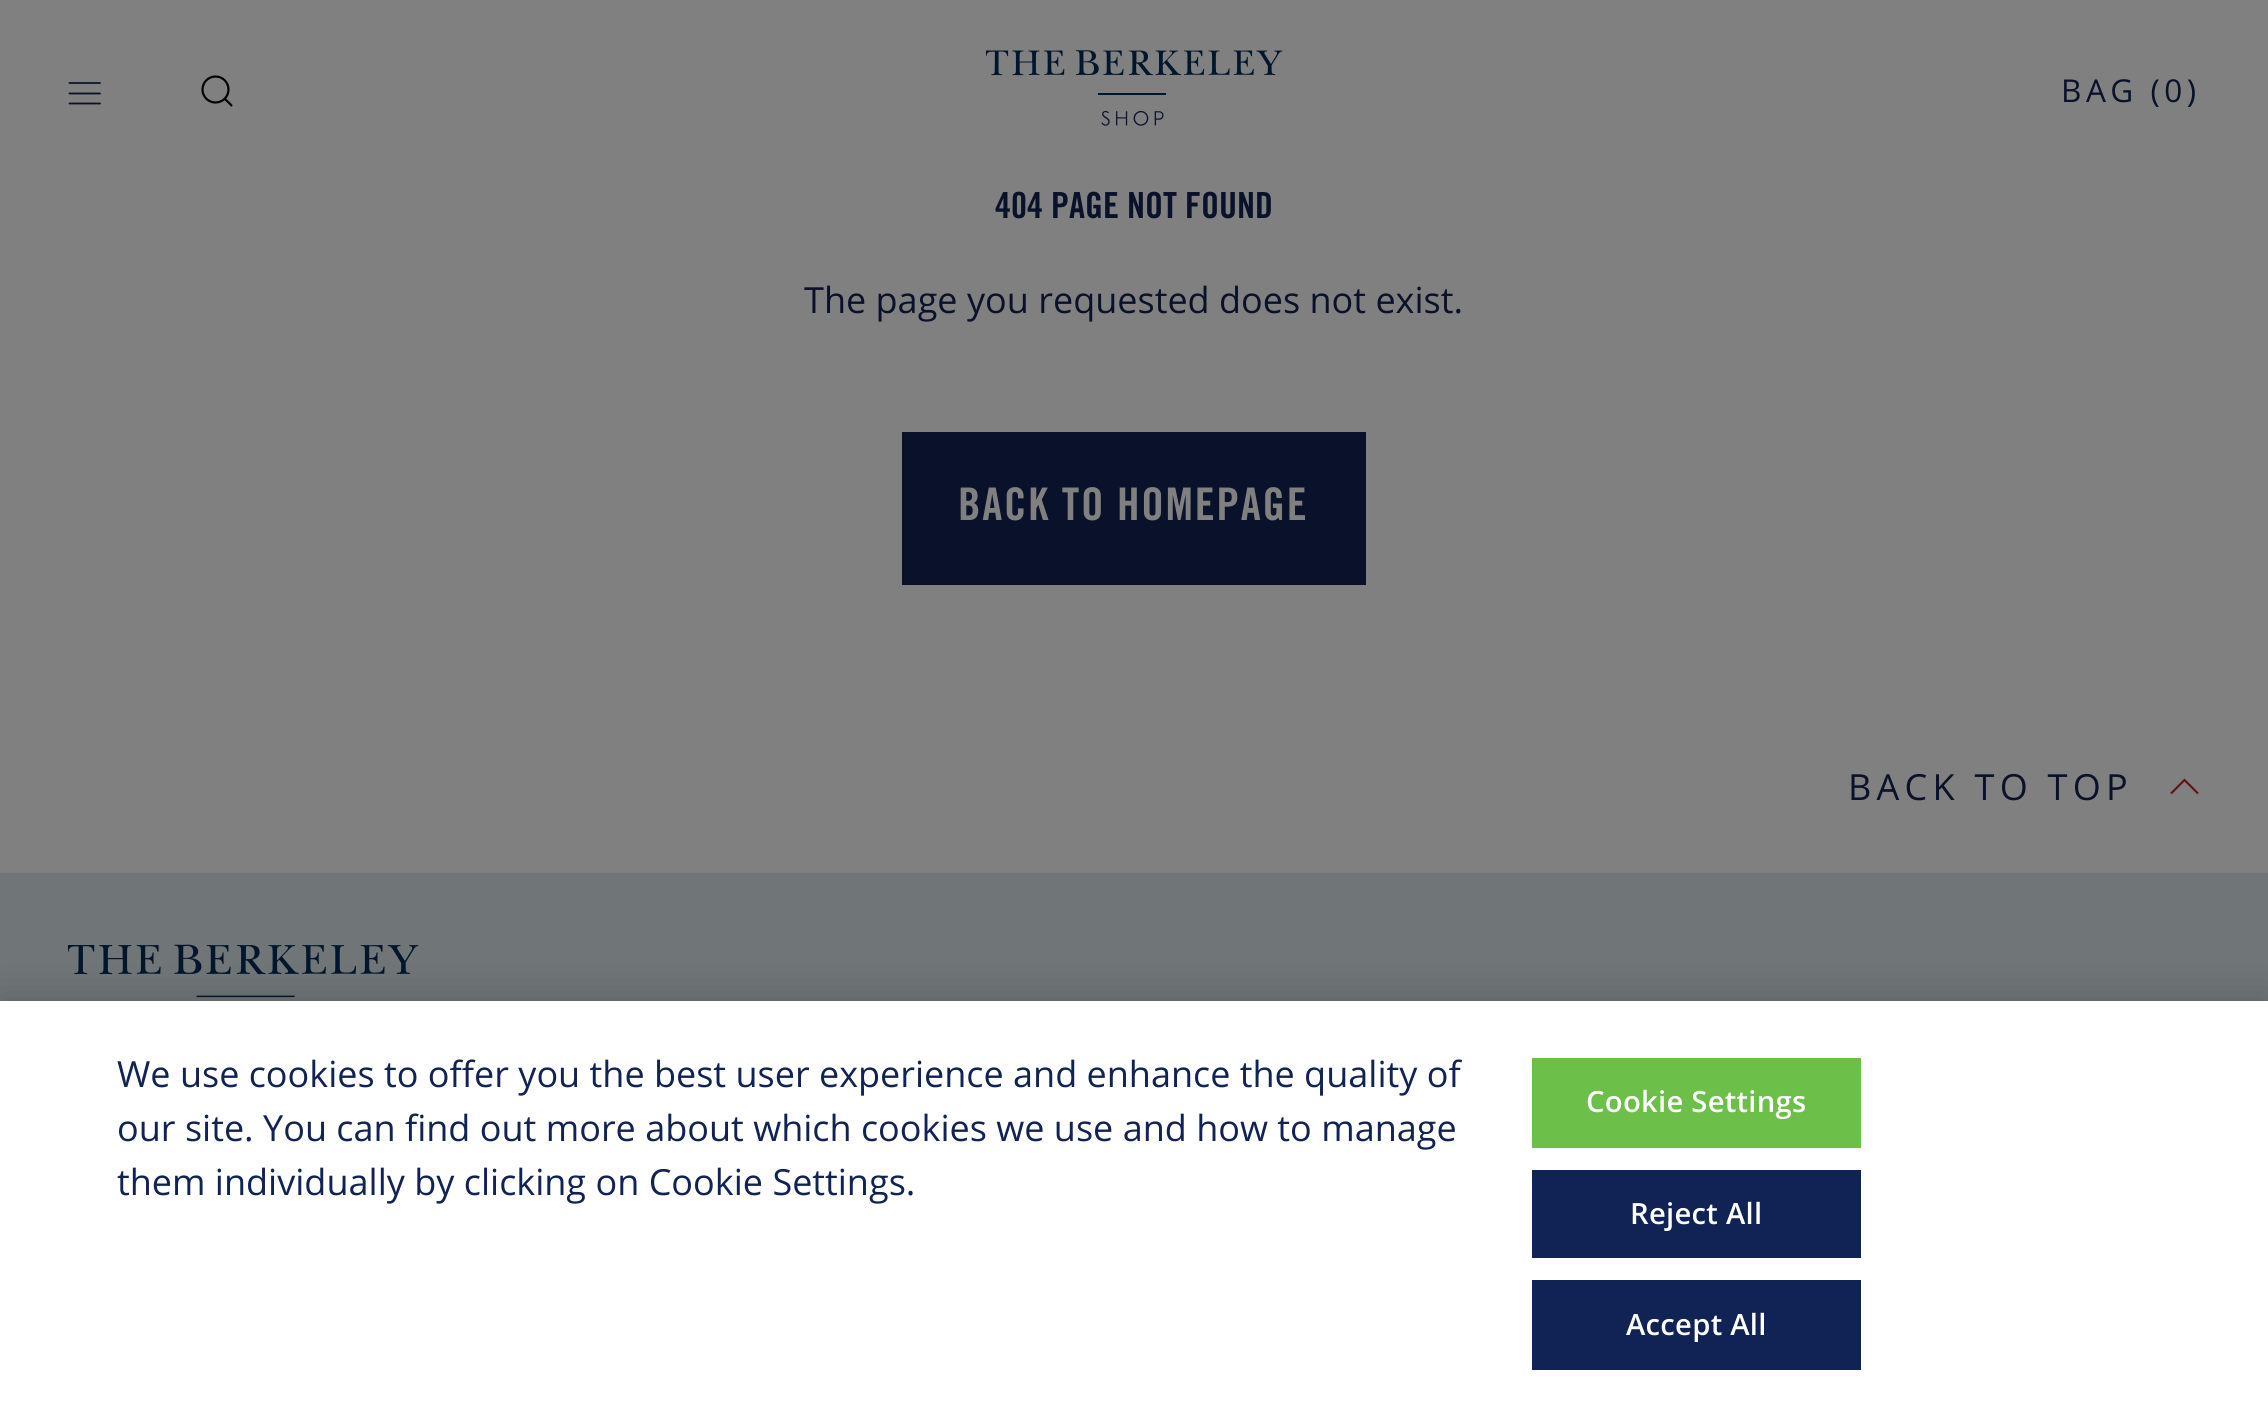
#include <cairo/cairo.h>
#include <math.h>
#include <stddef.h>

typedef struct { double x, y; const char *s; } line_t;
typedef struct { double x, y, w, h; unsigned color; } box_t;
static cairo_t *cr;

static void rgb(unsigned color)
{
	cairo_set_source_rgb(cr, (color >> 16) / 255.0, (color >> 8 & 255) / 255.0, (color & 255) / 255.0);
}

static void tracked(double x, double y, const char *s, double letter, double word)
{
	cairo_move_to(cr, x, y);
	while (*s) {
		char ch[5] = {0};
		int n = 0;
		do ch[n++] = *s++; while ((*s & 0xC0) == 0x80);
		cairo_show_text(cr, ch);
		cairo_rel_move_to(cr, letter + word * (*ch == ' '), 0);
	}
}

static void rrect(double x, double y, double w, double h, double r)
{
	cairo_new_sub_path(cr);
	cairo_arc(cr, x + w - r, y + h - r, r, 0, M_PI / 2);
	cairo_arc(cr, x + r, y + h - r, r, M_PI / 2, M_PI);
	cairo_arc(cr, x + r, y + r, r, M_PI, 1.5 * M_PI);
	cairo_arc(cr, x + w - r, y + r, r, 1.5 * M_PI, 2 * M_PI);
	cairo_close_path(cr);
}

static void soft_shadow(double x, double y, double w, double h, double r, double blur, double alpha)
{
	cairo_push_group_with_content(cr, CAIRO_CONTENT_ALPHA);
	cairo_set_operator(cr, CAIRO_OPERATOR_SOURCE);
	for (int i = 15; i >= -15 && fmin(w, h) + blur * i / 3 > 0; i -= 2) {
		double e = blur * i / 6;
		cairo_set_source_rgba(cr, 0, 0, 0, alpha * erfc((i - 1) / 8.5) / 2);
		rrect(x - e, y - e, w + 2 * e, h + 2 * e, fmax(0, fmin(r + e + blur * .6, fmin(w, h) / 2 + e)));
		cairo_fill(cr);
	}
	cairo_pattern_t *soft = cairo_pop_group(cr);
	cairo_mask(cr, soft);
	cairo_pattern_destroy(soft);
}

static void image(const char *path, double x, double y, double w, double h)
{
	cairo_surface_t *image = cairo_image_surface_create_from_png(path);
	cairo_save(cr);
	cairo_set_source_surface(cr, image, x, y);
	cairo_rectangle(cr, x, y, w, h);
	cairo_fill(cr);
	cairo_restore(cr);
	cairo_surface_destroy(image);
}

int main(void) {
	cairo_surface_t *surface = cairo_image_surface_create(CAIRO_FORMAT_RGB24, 2268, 1415);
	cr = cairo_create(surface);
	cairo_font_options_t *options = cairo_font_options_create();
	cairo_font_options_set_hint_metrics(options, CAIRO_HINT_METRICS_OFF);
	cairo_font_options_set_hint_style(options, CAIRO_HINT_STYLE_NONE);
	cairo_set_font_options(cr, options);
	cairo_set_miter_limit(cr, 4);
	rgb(0x808080);
	cairo_paint(cr);
	cairo_new_path(cr);
	cairo_move_to(cr, 69.5, 93.5);
	cairo_line_to(cr, 100, 93.5);
	cairo_move_to(cr, 69.5, 83);
	cairo_line_to(cr, 100, 83);
	cairo_move_to(cr, 69.5, 103.5);
	cairo_line_to(cr, 100, 103.5);
	rgb(0x09122a);
	cairo_set_line_width(cr, 1.8);
	cairo_set_line_cap(cr, CAIRO_LINE_CAP_ROUND);
	cairo_set_line_join(cr, CAIRO_LINE_JOIN_ROUND);
	cairo_stroke(cr);
	cairo_arc(cr, 215.5, 89.5, 13, 0, 2 * M_PI);
	rgb(0x000000);
	cairo_set_line_width(cr, 2.2);
	cairo_set_line_cap(cr, CAIRO_LINE_CAP_BUTT);
	cairo_set_line_join(cr, CAIRO_LINE_JOIN_MITER);
	cairo_stroke(cr);
	cairo_new_path(cr);
	cairo_move_to(cr, 232, 106);
	cairo_line_to(cr, 224.5, 98.5);
	cairo_stroke(cr);
	image("img/1.png", 986, 50, 297, 76);
	rgb(0x09122a);
	cairo_rectangle(cr, 902, 432, 464, 153);
	cairo_fill(cr);
	cairo_new_path(cr);
	cairo_move_to(cr, 2171, 793.5);
	cairo_line_to(cr, 2184.5, 780);
	cairo_line_to(cr, 2198, 793.5);
	rgb(0x601016);
	cairo_set_line_width(cr, 2.1);
	cairo_stroke(cr);
	rgb(0x707577);
	cairo_rectangle(cr, 0, 873, 2268, 128);
	cairo_fill(cr);
	image("img/2.png", 68, 944, 351, 54);
	rgb(0x000000);
	soft_shadow(0, 1001, 2268, 414, 0, 20, 0.2);
	{
		static const box_t items[] = {
			{0, 1001, 2268, 414, 0xffffff},
			{1532, 1058, 329, 90, 0x6cc04a},
			{1532, 1170, 329, 88, 0x112354},
			{1532, 1280, 329, 90, 0x112354},
		};
		for (size_t i = 0; i < sizeof items / sizeof *items; i++) {
			rgb(items[i].color);
			cairo_rectangle(cr, items[i].x, items[i].y, items[i].w, items[i].h);
			cairo_fill(cr);
		}
	}
	cairo_select_font_face(cr, "Open Sans", CAIRO_FONT_SLANT_NORMAL, CAIRO_FONT_WEIGHT_NORMAL);
	cairo_set_font_size(cr, 31.5);
	rgb(0x09122a);
	tracked(2061, 102, "BAG (0)", 4.5, 0);
	cairo_select_font_face(cr, "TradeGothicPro", CAIRO_FONT_SLANT_NORMAL, CAIRO_FONT_WEIGHT_NORMAL);
	cairo_set_font_size(cr, 36);
	cairo_move_to(cr, 995, 218);
	cairo_show_text(cr, "404 PAGE NOT FOUND");
	cairo_select_font_face(cr, "Open Sans", CAIRO_FONT_SLANT_NORMAL, CAIRO_FONT_WEIGHT_NORMAL);
	cairo_move_to(cr, 804, 313);
	cairo_show_text(cr, "The page you requested does not exist.");
	cairo_select_font_face(cr, "TradeGothicPro", CAIRO_FONT_SLANT_NORMAL, CAIRO_FONT_WEIGHT_NORMAL);
	cairo_set_font_size(cr, 45);
	rgb(0x808080);
	tracked(958, 520, "BACK TO HOMEPAGE", 1.75, 0);
	cairo_select_font_face(cr, "Open Sans", CAIRO_FONT_SLANT_NORMAL, CAIRO_FONT_WEIGHT_NORMAL);
	cairo_set_font_size(cr, 36);
	rgb(0x09122a);
	tracked(1848, 800, "BACK TO TOP", 5.25, 0);
	rgb(0x112354);
	{
		static const line_t items[] = {
			{117, 1087, "We use cookies to offer you the best user experience and enhance the quality of"},
			{117, 1141, "our site. You can find out more about which cookies we use and how to manage"},
			{117, 1195, "them individually by clicking on Cookie Settings."},
		};
		for (size_t i = 0; i < sizeof items / sizeof *items; i++) {
			cairo_move_to(cr, items[i].x, items[i].y);
			cairo_show_text(cr, items[i].s);
		}
	}
	cairo_select_font_face(cr, "Open Sans SemiBold", CAIRO_FONT_SLANT_NORMAL, CAIRO_FONT_WEIGHT_NORMAL);
	cairo_set_font_size(cr, 29.25);
	rgb(0xffffff);
	{
		static const line_t items[] = {
			{1586, 1112, "Cookie Settings"},
			{1630, 1224, "Reject All"},
			{1626, 1335, "Accept All"},
		};
		for (size_t i = 0; i < sizeof items / sizeof *items; i++) {
			tracked(items[i].x, items[i].y, items[i].s, 0.25, 0);
		}
	}
	cairo_surface_write_to_png(surface, "page.png");
	cairo_font_options_destroy(options);
	cairo_destroy(cr);
	cairo_surface_destroy(surface);
	return 0;
}
